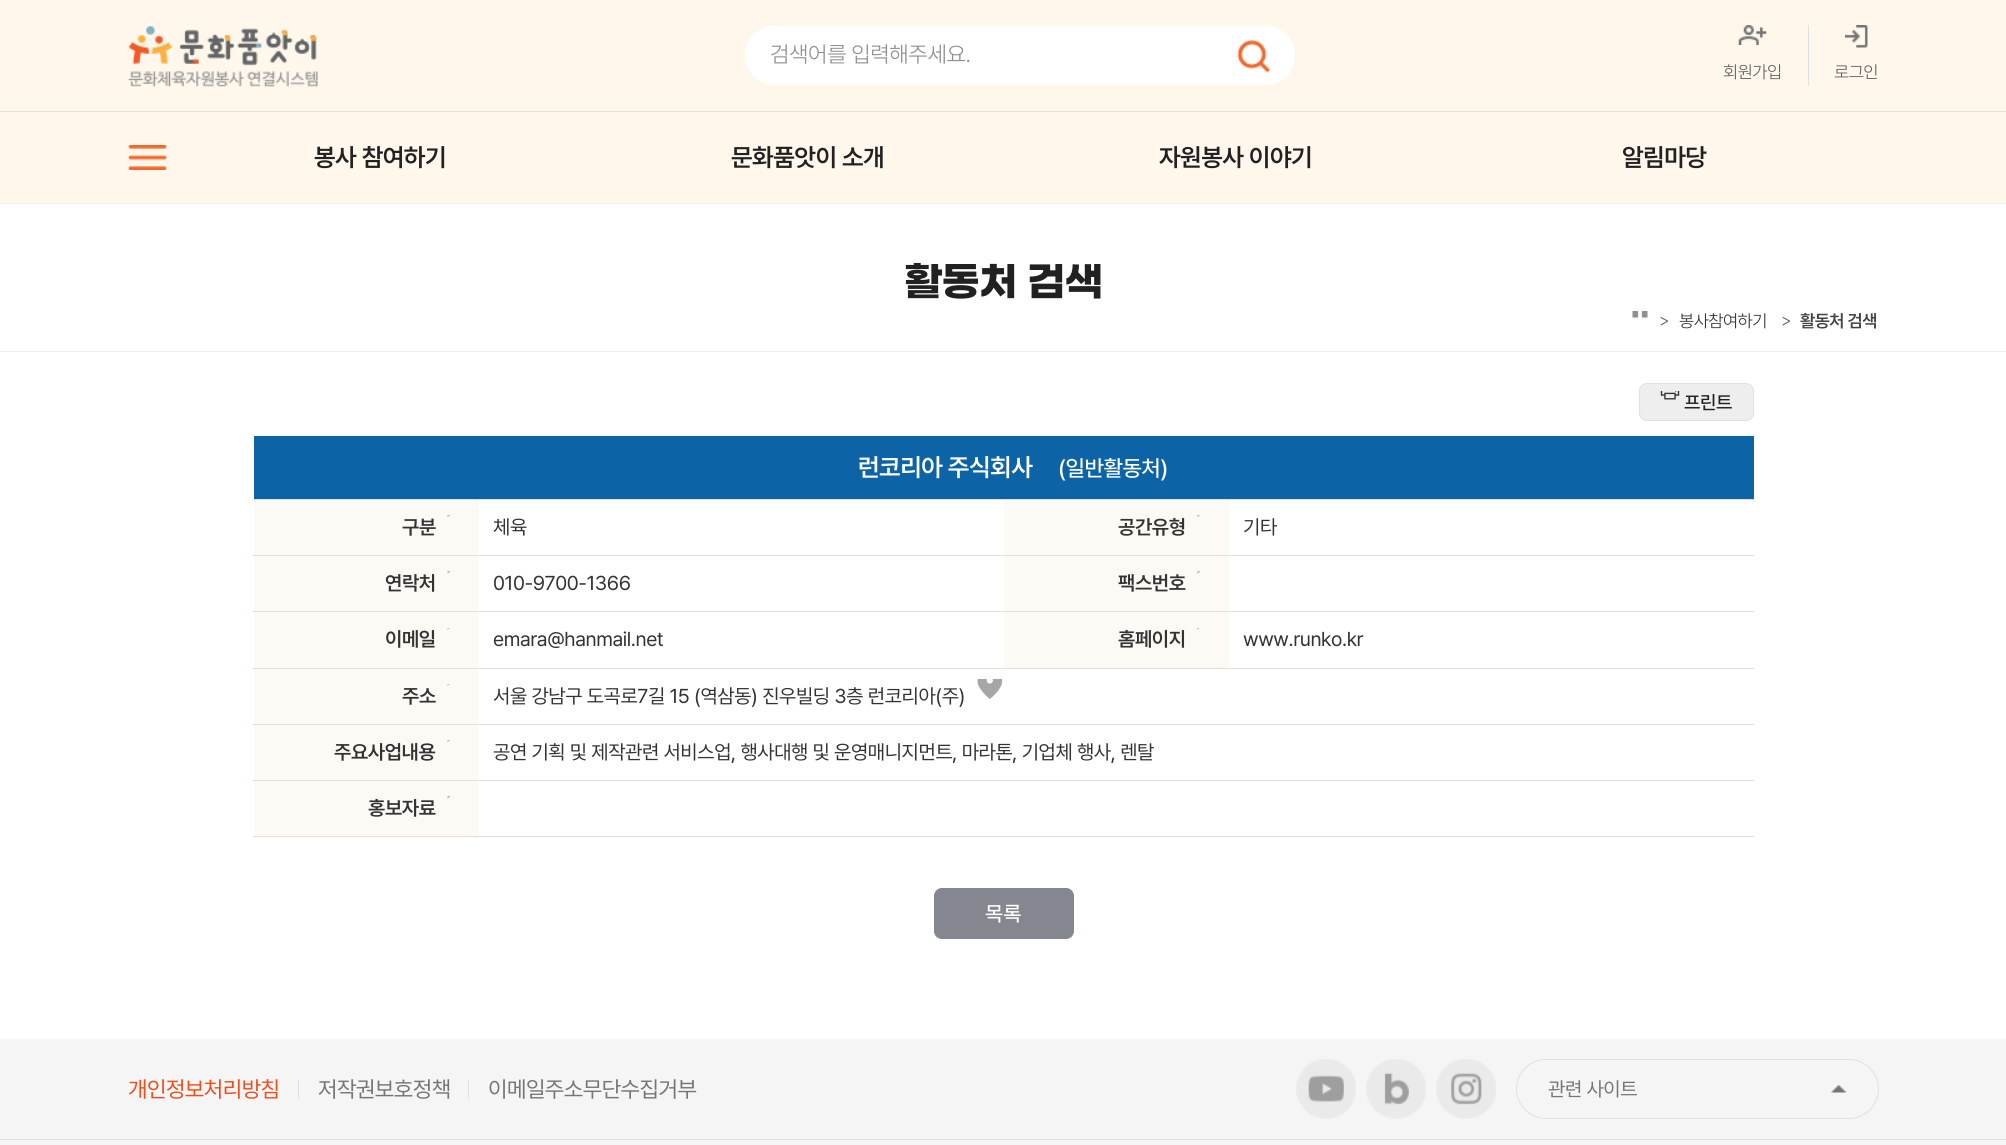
#include <cairo/cairo.h>
#include <math.h>
#include <stddef.h>

typedef struct { double x, y; const char *s; } line_t;
typedef struct { double x, y, w, h; unsigned color; } box_t;
static cairo_t *cr;

static void rgb(unsigned color)
{
	cairo_set_source_rgb(cr, (color >> 16) / 255.0, (color >> 8 & 255) / 255.0, (color & 255) / 255.0);
}

static void tracked(double x, double y, const char *s, double letter, double word)
{
	cairo_move_to(cr, x, y);
	while (*s) {
		char ch[5] = {0};
		int n = 0;
		do ch[n++] = *s++; while ((*s & 0xC0) == 0x80);
		cairo_show_text(cr, ch);
		cairo_rel_move_to(cr, letter + word * (*ch == ' '), 0);
	}
}

static void rrect(double x, double y, double w, double h, double r)
{
	cairo_new_sub_path(cr);
	cairo_arc(cr, x + w - r, y + h - r, r, 0, M_PI / 2);
	cairo_arc(cr, x + r, y + h - r, r, M_PI / 2, M_PI);
	cairo_arc(cr, x + r, y + r, r, M_PI, 1.5 * M_PI);
	cairo_arc(cr, x + w - r, y + r, r, 1.5 * M_PI, 2 * M_PI);
	cairo_close_path(cr);
}

static void image(const char *path, double x, double y, double w, double h)
{
	cairo_surface_t *image = cairo_image_surface_create_from_png(path);
	cairo_save(cr);
	cairo_set_source_surface(cr, image, x, y);
	cairo_rectangle(cr, x, y, w, h);
	cairo_fill(cr);
	cairo_restore(cr);
	cairo_surface_destroy(image);
}

int main(void) {
	cairo_surface_t *surface = cairo_image_surface_create(CAIRO_FORMAT_RGB24, 2006, 1145);
	cr = cairo_create(surface);
	cairo_font_options_t *options = cairo_font_options_create();
	cairo_font_options_set_hint_metrics(options, CAIRO_HINT_METRICS_OFF);
	cairo_font_options_set_hint_style(options, CAIRO_HINT_STYLE_NONE);
	cairo_set_font_options(cr, options);
	cairo_set_miter_limit(cr, 4);
	rgb(0xffffff);
	cairo_paint(cr);
	rgb(0xfff7ec);
	cairo_rectangle(cr, 0, 0, 2006, 203);
	cairo_fill(cr);
	rgb(0xe0e0e0);
	cairo_rectangle(cr, 0, 111, 2006, 1);
	cairo_fill(cr);
	image("img/1.png", 128, 26, 190, 61);
	rgb(0xffffff);
	rrect(745, 26, 550, 59, 29.5);
	cairo_fill(cr);
	cairo_rectangle(cr, 770, 26, 2, 59);
	cairo_fill(cr);
	image("img/2.png", 1237, 40, 33, 33);
	rgb(0xe0e0e0);
	cairo_rectangle(cr, 1808, 25, 1, 61);
	cairo_fill(cr);
	image("img/3.png", 1738, 25, 29, 20);
	image("img/4.png", 1845, 25, 23, 23);
	image("img/5.png", 128, 145, 39, 25);
	rgb(0xeeeeee);
	cairo_rectangle(cr, 0, 203, 2006, 1);
	cairo_fill(cr);
	cairo_rectangle(cr, 0, 351, 2006, 1);
	cairo_fill(cr);
	image("img/6.png", 1632, 311, 16, 7);
	rrect(1639.5, 383.5, 114, 37, 7.5);
	cairo_fill_preserve(cr);
	rgb(0xe0e0e0);
	cairo_set_line_width(cr, 1);
	cairo_stroke(cr);
	image("img/7.png", 1660, 391, 20, 9);
	rgb(0x0c63a6);
	cairo_rectangle(cr, 254, 436, 1500, 63);
	cairo_fill(cr);
	rgb(0xfdfaf5);
	cairo_rectangle(cr, 254, 500, 225, 55);
	cairo_fill(cr);
	cairo_save(cr);
	cairo_rectangle(cr, 441, 515, 18, 10);
	cairo_clip(cr);
	rgb(0xbababa);
	cairo_new_path(cr);
	cairo_move_to(cr, 447.5, 517.5);
	cairo_line_to(cr, 447.5, 507.5);
	cairo_line_to(cr, 452.5, 512.5);
	cairo_close_path(cr);
	cairo_fill(cr);
	cairo_restore(cr);
	cairo_rectangle(cr, 1004, 500, 225, 55);
	cairo_fill(cr);
	cairo_save(cr);
	cairo_rectangle(cr, 1191, 515, 18, 10);
	cairo_clip(cr);
	rgb(0xbababa);
	cairo_new_path(cr);
	cairo_move_to(cr, 1197.5, 517.5);
	cairo_line_to(cr, 1197.5, 507.5);
	cairo_line_to(cr, 1202.5, 512.5);
	cairo_close_path(cr);
	cairo_fill(cr);
	cairo_restore(cr);
	{
		static const box_t items[] = {
			{253, 499, 1501, 1, 0xe0e0e0},
			{253, 555, 1501, 1, 0xe0e0e0},
			{254, 556, 225, 112, 0xfdfaf5},
		};
		for (size_t i = 0; i < sizeof items / sizeof *items; i++) {
			rgb(items[i].color);
			cairo_rectangle(cr, items[i].x, items[i].y, items[i].w, items[i].h);
			cairo_fill(cr);
		}
	}
	cairo_save(cr);
	cairo_rectangle(cr, 441, 571, 18, 10);
	cairo_clip(cr);
	rgb(0xbababa);
	cairo_new_path(cr);
	cairo_move_to(cr, 447.5, 574);
	cairo_line_to(cr, 447.5, 564);
	cairo_line_to(cr, 452.5, 569);
	cairo_close_path(cr);
	cairo_fill(cr);
	cairo_restore(cr);
	cairo_rectangle(cr, 1004, 556, 225, 112);
	cairo_fill(cr);
	cairo_save(cr);
	cairo_rectangle(cr, 1191, 571, 18, 10);
	cairo_clip(cr);
	rgb(0xbababa);
	cairo_new_path(cr);
	cairo_move_to(cr, 1197.5, 574);
	cairo_line_to(cr, 1197.5, 564);
	cairo_line_to(cr, 1202.5, 569);
	cairo_close_path(cr);
	cairo_fill(cr);
	cairo_restore(cr);
	cairo_save(cr);
	cairo_rectangle(cr, 441, 628, 18, 10);
	cairo_clip(cr);
	rgb(0xbababa);
	cairo_new_path(cr);
	cairo_move_to(cr, 447.5, 630);
	cairo_line_to(cr, 447.5, 620);
	cairo_line_to(cr, 452.5, 625);
	cairo_close_path(cr);
	cairo_fill(cr);
	cairo_restore(cr);
	cairo_save(cr);
	cairo_rectangle(cr, 1191, 628, 18, 10);
	cairo_clip(cr);
	rgb(0xbababa);
	cairo_new_path(cr);
	cairo_move_to(cr, 1197.5, 630);
	cairo_line_to(cr, 1197.5, 620);
	cairo_line_to(cr, 1202.5, 625);
	cairo_close_path(cr);
	cairo_fill(cr);
	cairo_restore(cr);
	rgb(0xe0e0e0);
	cairo_rectangle(cr, 253, 611, 1501, 1);
	cairo_fill(cr);
	rgb(0xfdfaf5);
	cairo_rectangle(cr, 254, 669, 225, 55);
	cairo_fill(cr);
	cairo_save(cr);
	cairo_rectangle(cr, 441, 684, 18, 10);
	cairo_clip(cr);
	rgb(0xbababa);
	cairo_new_path(cr);
	cairo_move_to(cr, 447.5, 686);
	cairo_line_to(cr, 447.5, 676);
	cairo_line_to(cr, 452.5, 681);
	cairo_close_path(cr);
	cairo_fill(cr);
	cairo_restore(cr);
	rgb(0xe0e0e0);
	cairo_rectangle(cr, 253, 668, 1501, 1);
	cairo_fill(cr);
	image("img/8.png", 977, 679, 26, 20);
	rgb(0xfdfaf5);
	cairo_rectangle(cr, 254, 725, 225, 55);
	cairo_fill(cr);
	cairo_save(cr);
	cairo_rectangle(cr, 441, 740, 18, 10);
	cairo_clip(cr);
	rgb(0xbababa);
	cairo_new_path(cr);
	cairo_move_to(cr, 447.5, 742.5);
	cairo_line_to(cr, 447.5, 732.5);
	cairo_line_to(cr, 452.5, 737.5);
	cairo_close_path(cr);
	cairo_fill(cr);
	cairo_restore(cr);
	{
		static const box_t items[] = {
			{253, 724, 1501, 1, 0xe0e0e0},
			{253, 780, 1501, 1, 0xe0e0e0},
			{254, 781, 225, 57, 0xfdfaf5},
			{253, 836, 1501, 1, 0xe0e0e0},
		};
		for (size_t i = 0; i < sizeof items / sizeof *items; i++) {
			rgb(items[i].color);
			cairo_rectangle(cr, items[i].x, items[i].y, items[i].w, items[i].h);
			cairo_fill(cr);
		}
	}
	cairo_save(cr);
	cairo_rectangle(cr, 441, 796, 18, 10);
	cairo_clip(cr);
	rgb(0xbababa);
	cairo_new_path(cr);
	cairo_move_to(cr, 447.5, 799);
	cairo_line_to(cr, 447.5, 789);
	cairo_line_to(cr, 452.5, 794);
	cairo_close_path(cr);
	cairo_fill(cr);
	cairo_restore(cr);
	rgb(0x848690);
	rrect(934.5, 888.5, 139, 50, 7.5);
	cairo_fill_preserve(cr);
	cairo_stroke(cr);
	{
		static const box_t items[] = {
			{0, 1039, 2006, 106, 0xf5f5f5},
			{0, 1139, 2006, 1, 0xe0e0e0},
			{298, 1080, 1, 19, 0xe0e0e0},
			{468, 1080, 1, 19, 0xe0e0e0},
		};
		for (size_t i = 0; i < sizeof items / sizeof *items; i++) {
			rgb(items[i].color);
			cairo_rectangle(cr, items[i].x, items[i].y, items[i].w, items[i].h);
			cairo_fill(cr);
		}
	}
	image("img/9.png", 1296, 1059, 60, 60);
	image("img/10.png", 1366, 1059, 60, 60);
	image("img/11.png", 1436, 1059, 60, 60);
	rrect(1516.5, 1059.5, 362, 59, 29.5);
	cairo_stroke(cr);
	image("img/12.png", 1831, 1085, 16, 8);
	cairo_select_font_face(cr, "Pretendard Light", CAIRO_FONT_SLANT_NORMAL, CAIRO_FONT_WEIGHT_NORMAL);
	cairo_set_font_size(cr, 22.5);
	rgb(0x909090);
	tracked(770, 62, "검색어를 입력해주세요.", -0.4, 0);
	cairo_set_font_size(cr, 17.5);
	rgb(0x616161);
	tracked(1723, 78, "회원가입", -0.5, 0);
	tracked(1834, 78, "로그인", -0.5, 0);
	cairo_select_font_face(cr, "Pretendard SemiBold", CAIRO_FONT_SLANT_NORMAL, CAIRO_FONT_WEIGHT_NORMAL);
	cairo_set_font_size(cr, 25);
	rgb(0x212121);
	{
		static const line_t items[] = {
			{314, 166, "봉사 참여하기"},
			{731, 166, "문화품앗이 소개"},
			{1159, 166, "자원봉사 이야기"},
			{1622, 166, "알림마당"},
		};
		for (size_t i = 0; i < sizeof items / sizeof *items; i++) {
			tracked(items[i].x, items[i].y, items[i].s, -0.5, 0);
		}
	}
	cairo_select_font_face(cr, "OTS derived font", CAIRO_FONT_SLANT_NORMAL, CAIRO_FONT_WEIGHT_BOLD);
	cairo_set_font_size(cr, 40);
	tracked(904, 294, "활동처", -1, 0);
	tracked(1027, 294, "검색", -1, 0);
	cairo_select_font_face(cr, "Pretendard Light", CAIRO_FONT_SLANT_NORMAL, CAIRO_FONT_WEIGHT_NORMAL);
	cairo_set_font_size(cr, 17.5);
	rgb(0x616161);
	tracked(1659, 326, ">", -0.5, 0);
	rgb(0x333333);
	tracked(1679, 327, "봉사참여하기", -0.5, 0);
	rgb(0x616161);
	tracked(1781, 326, ">", -0.5, 0);
	cairo_select_font_face(cr, "Pretendard SemiBold", CAIRO_FONT_SLANT_NORMAL, CAIRO_FONT_WEIGHT_NORMAL);
	rgb(0x424242);
	tracked(1800, 327, "활동처 검색", -0.5, 0);
	cairo_select_font_face(cr, "Pretendard Medium", CAIRO_FONT_SLANT_NORMAL, CAIRO_FONT_WEIGHT_NORMAL);
	cairo_set_font_size(cr, 19);
	rgb(0x212121);
	tracked(1684, 409, "프린트", -0.4, 0);
	cairo_select_font_face(cr, "Pretendard SemiBold", CAIRO_FONT_SLANT_NORMAL, CAIRO_FONT_WEIGHT_NORMAL);
	cairo_set_font_size(cr, 25);
	rgb(0xffffff);
	tracked(858, 476, "런코리아 주식회사", -0.5, 0);
	cairo_select_font_face(cr, "Pretendard Medium", CAIRO_FONT_SLANT_NORMAL, CAIRO_FONT_WEIGHT_NORMAL);
	cairo_set_font_size(cr, 22.5);
	tracked(1058, 476, "(일반활동처)", -0.5, 0);
	cairo_select_font_face(cr, "Pretendard SemiBold", CAIRO_FONT_SLANT_NORMAL, CAIRO_FONT_WEIGHT_NORMAL);
	cairo_set_font_size(cr, 20);
	rgb(0x333333);
	tracked(402, 534, "구분", -0.4, 0);
	cairo_select_font_face(cr, "Pretendard", CAIRO_FONT_SLANT_NORMAL, CAIRO_FONT_WEIGHT_NORMAL);
	tracked(493, 534, "체육", -0.4, 0);
	cairo_select_font_face(cr, "Pretendard SemiBold", CAIRO_FONT_SLANT_NORMAL, CAIRO_FONT_WEIGHT_NORMAL);
	tracked(1118, 534, "공간유형", -0.4, 0);
	cairo_select_font_face(cr, "Pretendard", CAIRO_FONT_SLANT_NORMAL, CAIRO_FONT_WEIGHT_NORMAL);
	tracked(1243, 534, "기타", -0.4, 0);
	cairo_select_font_face(cr, "Pretendard SemiBold", CAIRO_FONT_SLANT_NORMAL, CAIRO_FONT_WEIGHT_NORMAL);
	tracked(385, 590, "연락처", -0.4, 0);
	cairo_select_font_face(cr, "Pretendard", CAIRO_FONT_SLANT_NORMAL, CAIRO_FONT_WEIGHT_NORMAL);
	tracked(493, 590, "010-9700-1366", -0.4, 0);
	cairo_select_font_face(cr, "Pretendard SemiBold", CAIRO_FONT_SLANT_NORMAL, CAIRO_FONT_WEIGHT_NORMAL);
	tracked(1118, 590, "팩스번호", -0.4, 0);
	tracked(385, 646, "이메일", -0.4, 0);
	cairo_select_font_face(cr, "Pretendard", CAIRO_FONT_SLANT_NORMAL, CAIRO_FONT_WEIGHT_NORMAL);
	tracked(493, 646, "emara@hanmail.net", -0.4, 0);
	cairo_select_font_face(cr, "Pretendard SemiBold", CAIRO_FONT_SLANT_NORMAL, CAIRO_FONT_WEIGHT_NORMAL);
	tracked(1118, 646, "홈페이지", -0.4, 0);
	cairo_select_font_face(cr, "Pretendard", CAIRO_FONT_SLANT_NORMAL, CAIRO_FONT_WEIGHT_NORMAL);
	tracked(1243, 646, "www.runko.kr", -0.4, 0);
	cairo_select_font_face(cr, "Pretendard SemiBold", CAIRO_FONT_SLANT_NORMAL, CAIRO_FONT_WEIGHT_NORMAL);
	tracked(402, 703, "주소", -0.4, 0);
	cairo_select_font_face(cr, "Pretendard", CAIRO_FONT_SLANT_NORMAL, CAIRO_FONT_WEIGHT_NORMAL);
	tracked(493, 703, "서울 강남구 도곡로7길 15 (역삼동) 진우빌딩 3층 런코리아(주)", -0.4, 0);
	cairo_select_font_face(cr, "Pretendard SemiBold", CAIRO_FONT_SLANT_NORMAL, CAIRO_FONT_WEIGHT_NORMAL);
	tracked(334, 759, "주요사업내용", -0.4, 0);
	cairo_select_font_face(cr, "Pretendard", CAIRO_FONT_SLANT_NORMAL, CAIRO_FONT_WEIGHT_NORMAL);
	tracked(493, 759, "공연 기획 및 제작관련 서비스업, 행사대행 및 운영매니지먼트, 마라톤, 기업체 행사, 렌탈", -0.4, 0);
	cairo_select_font_face(cr, "Pretendard SemiBold", CAIRO_FONT_SLANT_NORMAL, CAIRO_FONT_WEIGHT_NORMAL);
	tracked(368, 815, "홍보자료", -0.4, 0);
	cairo_select_font_face(cr, "Pretendard Medium", CAIRO_FONT_SLANT_NORMAL, CAIRO_FONT_WEIGHT_NORMAL);
	cairo_set_font_size(cr, 21);
	rgb(0xffffff);
	cairo_move_to(cr, 985, 921);
	cairo_show_text(cr, "목록");
	cairo_select_font_face(cr, "Pretendard", CAIRO_FONT_SLANT_NORMAL, CAIRO_FONT_WEIGHT_NORMAL);
	cairo_set_font_size(cr, 22.5);
	rgb(0xf04c1b);
	tracked(128, 1097, "개인정보처리방침", -0.5, 0);
	rgb(0x757575);
	tracked(318, 1097, "저작권보호정책", -0.5, 0);
	tracked(488, 1097, "이메일주소무단수집거부", -0.5, 0);
	cairo_set_font_size(cr, 20);
	tracked(1548, 1096, "관련 사이트", -0.4, 0);
	cairo_surface_write_to_png(surface, "page.png");
	cairo_font_options_destroy(options);
	cairo_destroy(cr);
	cairo_surface_destroy(surface);
	return 0;
}
